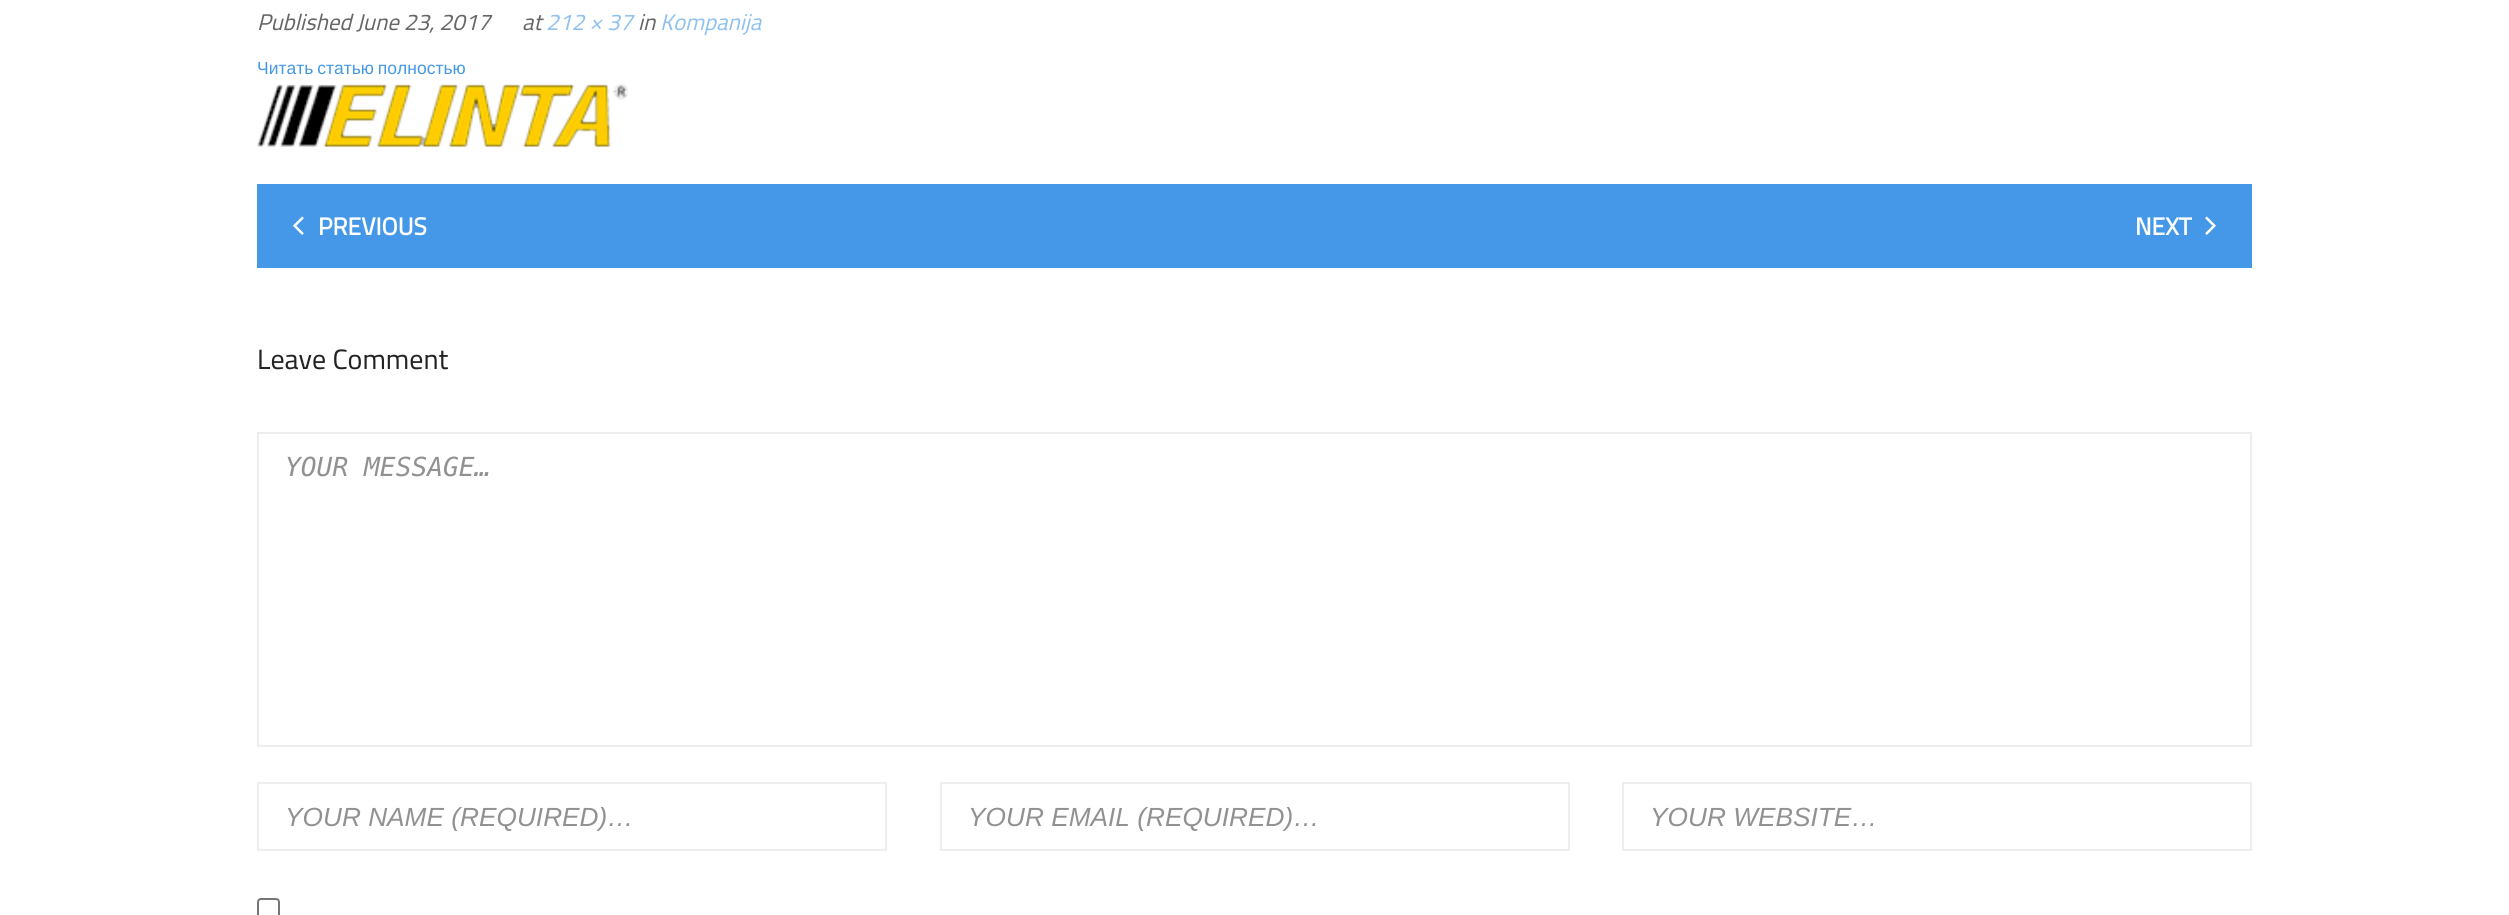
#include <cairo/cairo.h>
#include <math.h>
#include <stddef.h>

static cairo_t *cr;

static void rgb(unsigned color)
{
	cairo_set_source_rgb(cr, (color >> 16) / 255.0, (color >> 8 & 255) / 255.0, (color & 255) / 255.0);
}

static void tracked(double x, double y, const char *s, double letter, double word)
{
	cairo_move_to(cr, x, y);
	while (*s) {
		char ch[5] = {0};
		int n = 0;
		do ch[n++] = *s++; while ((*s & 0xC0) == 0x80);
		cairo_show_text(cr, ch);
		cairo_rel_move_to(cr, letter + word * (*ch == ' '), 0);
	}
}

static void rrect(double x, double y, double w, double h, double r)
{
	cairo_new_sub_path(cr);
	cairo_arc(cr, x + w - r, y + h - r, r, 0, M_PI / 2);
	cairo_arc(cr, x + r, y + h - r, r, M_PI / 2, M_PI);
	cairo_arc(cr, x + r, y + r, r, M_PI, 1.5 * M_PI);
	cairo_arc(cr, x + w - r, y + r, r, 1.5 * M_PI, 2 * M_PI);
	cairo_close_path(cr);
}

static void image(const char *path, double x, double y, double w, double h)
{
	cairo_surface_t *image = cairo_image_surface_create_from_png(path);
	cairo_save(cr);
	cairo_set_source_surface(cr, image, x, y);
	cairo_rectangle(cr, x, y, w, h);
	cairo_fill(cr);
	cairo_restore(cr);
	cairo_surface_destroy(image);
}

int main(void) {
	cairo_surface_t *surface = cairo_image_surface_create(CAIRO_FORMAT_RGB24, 2509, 915);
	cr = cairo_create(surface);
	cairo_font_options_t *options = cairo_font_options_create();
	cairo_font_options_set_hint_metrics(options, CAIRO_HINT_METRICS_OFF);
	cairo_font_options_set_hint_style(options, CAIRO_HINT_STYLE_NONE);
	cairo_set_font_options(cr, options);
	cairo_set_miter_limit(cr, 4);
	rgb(0xffffff);
	cairo_paint(cr);
	image("img/1.png", 257, 83, 371, 65);
	rgb(0x4498e7);
	cairo_rectangle(cr, 257, 184, 1995, 84);
	cairo_fill(cr);
	image("img/2.png", 293, 216, 11, 19);
	image("img/3.png", 2205, 216, 11, 19);
	cairo_rectangle(cr, 258, 433, 1993, 313);
	rgb(0xeeeeee);
	cairo_stroke(cr);
	cairo_rectangle(cr, 258, 783, 628, 67);
	cairo_stroke(cr);
	cairo_rectangle(cr, 941, 783, 628, 67);
	cairo_stroke(cr);
	cairo_rectangle(cr, 1623, 783, 628, 67);
	cairo_stroke(cr);
	rrect(258, 899, 21, 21, 3);
	rgb(0x767676);
	cairo_stroke(cr);
	cairo_select_font_face(cr, "Cairo", CAIRO_FONT_SLANT_ITALIC, CAIRO_FONT_WEIGHT_NORMAL);
	cairo_set_font_size(cr, 22.75);
	rgb(0x666666);
	cairo_move_to(cr, 257, 30);
	cairo_show_text(cr, "Published June 23, 2017");
	cairo_move_to(cr, 522, 30);
	cairo_show_text(cr, "at");
	rgb(0x8fc1f1);
	cairo_move_to(cr, 546, 30);
	cairo_show_text(cr, "212 × 37");
	rgb(0x666666);
	cairo_move_to(cr, 638, 30);
	cairo_show_text(cr, "in");
	rgb(0x8fc1f1);
	cairo_move_to(cr, 660, 30);
	cairo_show_text(cr, "Kompanija");
	cairo_select_font_face(cr, "Liberation Sans", CAIRO_FONT_SLANT_NORMAL, CAIRO_FONT_WEIGHT_NORMAL);
	cairo_set_font_size(cr, 17.5);
	rgb(0x4498e7);
	tracked(257, 74, "Читать статью полностью", 0, -1);
	cairo_select_font_face(cr, "Cairo", CAIRO_FONT_SLANT_NORMAL, CAIRO_FONT_WEIGHT_BOLD);
	cairo_set_font_size(cr, 24.5);
	rgb(0xffffff);
	cairo_move_to(cr, 318, 235);
	cairo_show_text(cr, "PREVIOUS");
	cairo_move_to(cr, 2135, 235);
	cairo_show_text(cr, "NEXT");
	cairo_select_font_face(cr, "Cairo", CAIRO_FONT_SLANT_NORMAL, CAIRO_FONT_WEIGHT_NORMAL);
	cairo_set_font_size(cr, 28);
	rgb(0x232323);
	cairo_move_to(cr, 257, 369);
	cairo_show_text(cr, "Leave Comment");
	cairo_select_font_face(cr, "DejaVu Sans Mono", CAIRO_FONT_SLANT_ITALIC, CAIRO_FONT_WEIGHT_NORMAL);
	cairo_set_font_size(cr, 26.25);
	rgb(0x919191);
	cairo_move_to(cr, 285, 476);
	cairo_show_text(cr, "YOUR MESSAGE…");
	cairo_save(cr);
	cairo_rectangle(cr, 285, 802, 574, 29);
	cairo_clip(cr);
	cairo_select_font_face(cr, "Liberation Sans", CAIRO_FONT_SLANT_ITALIC, CAIRO_FONT_WEIGHT_NORMAL);
	cairo_move_to(cr, 285, 826);
	cairo_show_text(cr, "YOUR NAME (REQUIRED)…");
	cairo_restore(cr);
	cairo_save(cr);
	cairo_rectangle(cr, 968, 802, 574, 29);
	cairo_clip(cr);
	cairo_select_font_face(cr, "Liberation Sans", CAIRO_FONT_SLANT_ITALIC, CAIRO_FONT_WEIGHT_NORMAL);
	cairo_move_to(cr, 968, 826);
	cairo_show_text(cr, "YOUR EMAIL (REQUIRED)…");
	cairo_restore(cr);
	cairo_select_font_face(cr, "Liberation Sans", CAIRO_FONT_SLANT_ITALIC, CAIRO_FONT_WEIGHT_NORMAL);
	cairo_move_to(cr, 1650, 826);
	cairo_show_text(cr, "YOUR WEBSITE…");
	cairo_surface_write_to_png(surface, "page.png");
	cairo_font_options_destroy(options);
	cairo_destroy(cr);
	cairo_surface_destroy(surface);
	return 0;
}
